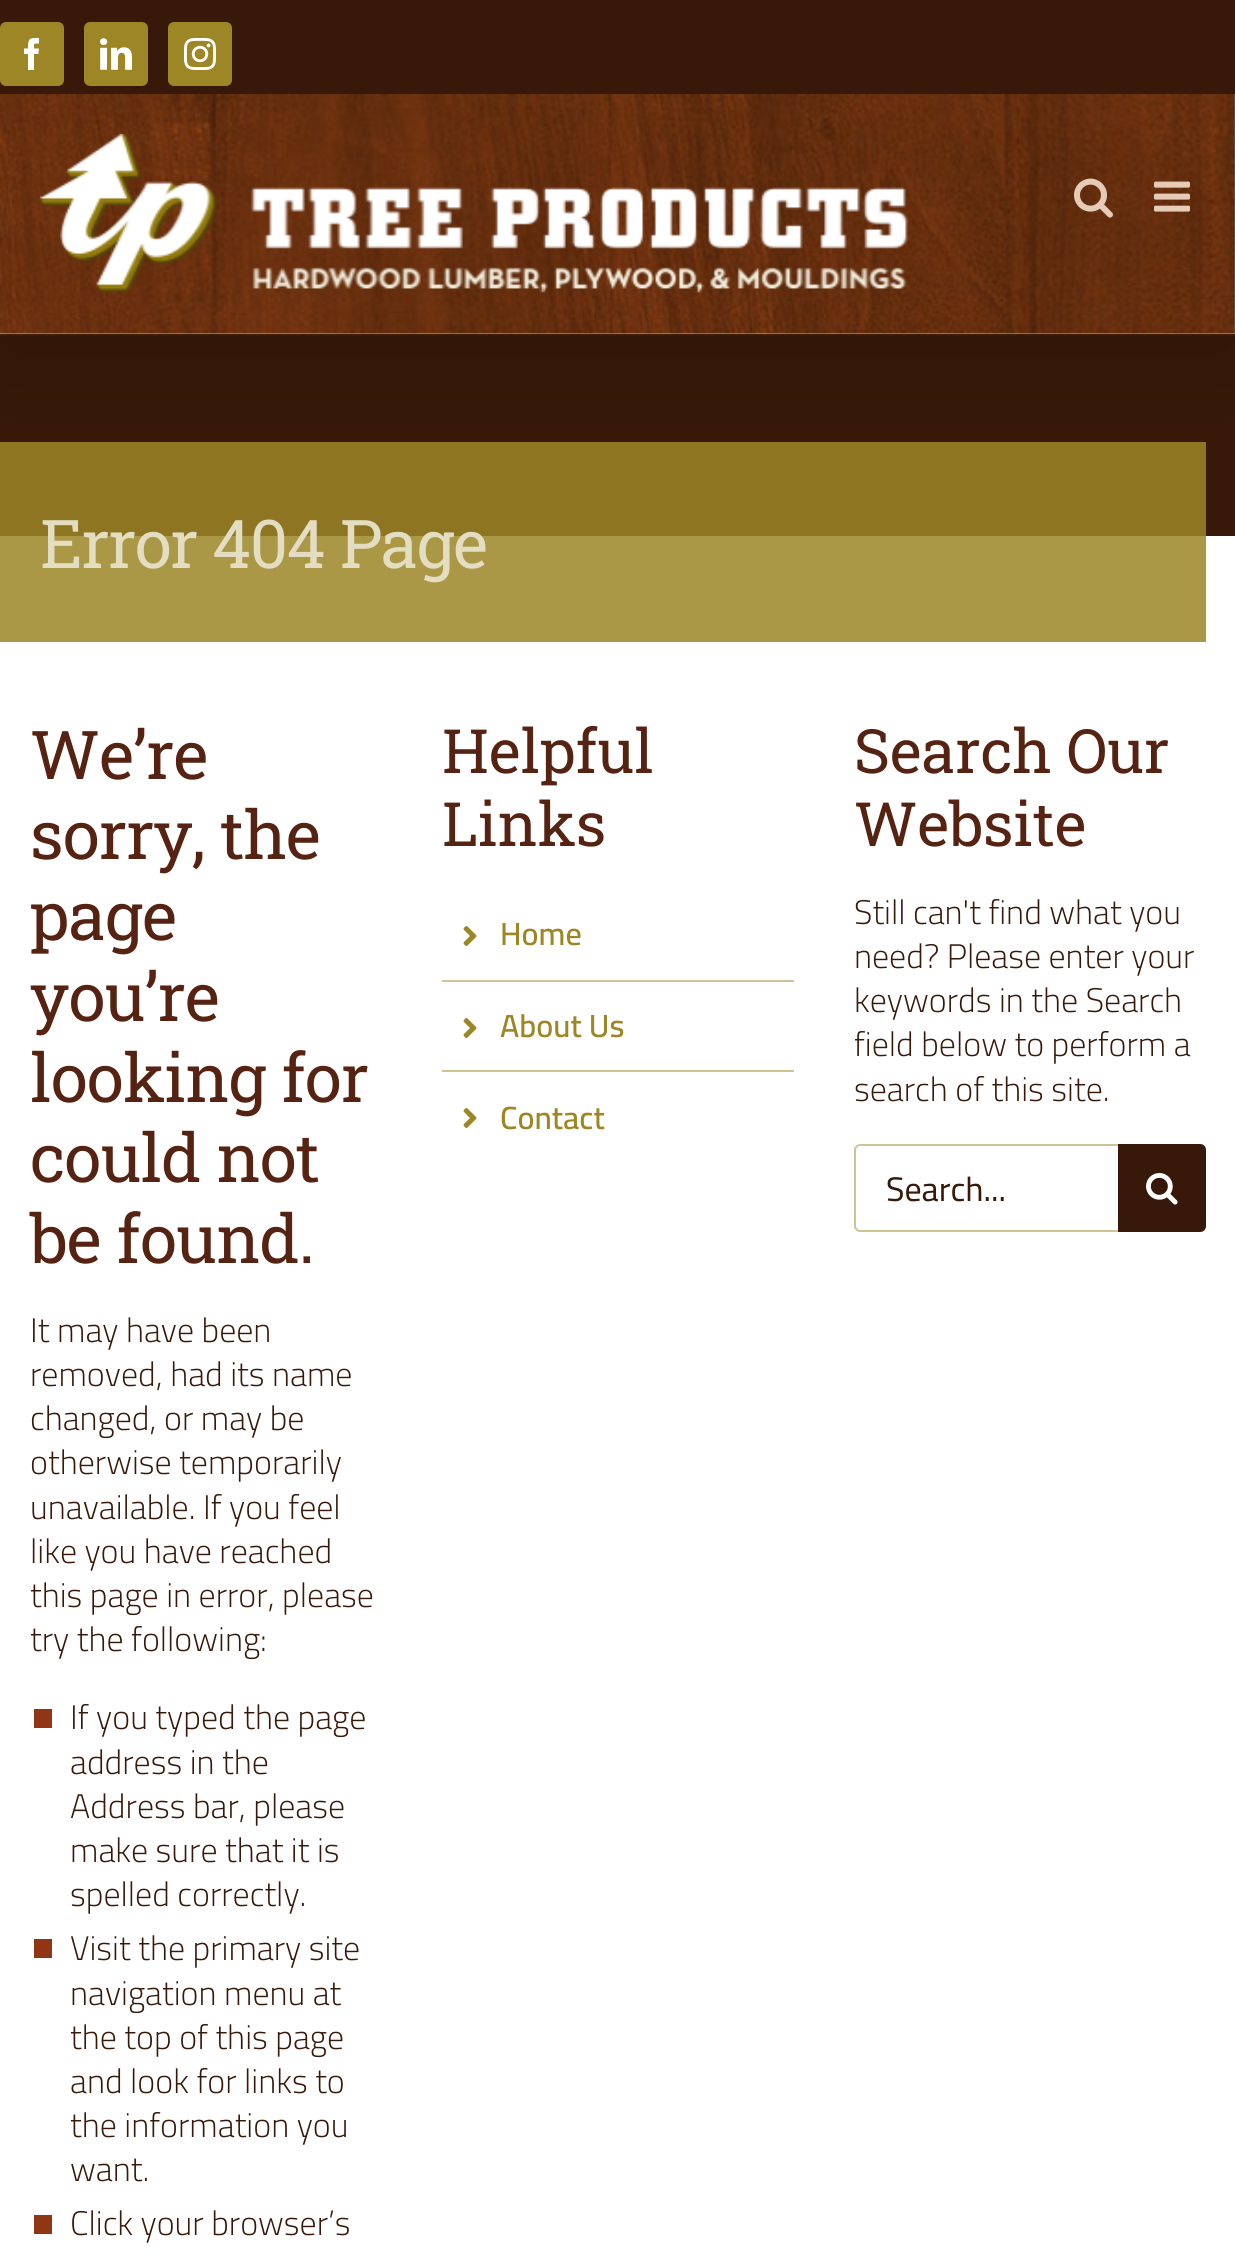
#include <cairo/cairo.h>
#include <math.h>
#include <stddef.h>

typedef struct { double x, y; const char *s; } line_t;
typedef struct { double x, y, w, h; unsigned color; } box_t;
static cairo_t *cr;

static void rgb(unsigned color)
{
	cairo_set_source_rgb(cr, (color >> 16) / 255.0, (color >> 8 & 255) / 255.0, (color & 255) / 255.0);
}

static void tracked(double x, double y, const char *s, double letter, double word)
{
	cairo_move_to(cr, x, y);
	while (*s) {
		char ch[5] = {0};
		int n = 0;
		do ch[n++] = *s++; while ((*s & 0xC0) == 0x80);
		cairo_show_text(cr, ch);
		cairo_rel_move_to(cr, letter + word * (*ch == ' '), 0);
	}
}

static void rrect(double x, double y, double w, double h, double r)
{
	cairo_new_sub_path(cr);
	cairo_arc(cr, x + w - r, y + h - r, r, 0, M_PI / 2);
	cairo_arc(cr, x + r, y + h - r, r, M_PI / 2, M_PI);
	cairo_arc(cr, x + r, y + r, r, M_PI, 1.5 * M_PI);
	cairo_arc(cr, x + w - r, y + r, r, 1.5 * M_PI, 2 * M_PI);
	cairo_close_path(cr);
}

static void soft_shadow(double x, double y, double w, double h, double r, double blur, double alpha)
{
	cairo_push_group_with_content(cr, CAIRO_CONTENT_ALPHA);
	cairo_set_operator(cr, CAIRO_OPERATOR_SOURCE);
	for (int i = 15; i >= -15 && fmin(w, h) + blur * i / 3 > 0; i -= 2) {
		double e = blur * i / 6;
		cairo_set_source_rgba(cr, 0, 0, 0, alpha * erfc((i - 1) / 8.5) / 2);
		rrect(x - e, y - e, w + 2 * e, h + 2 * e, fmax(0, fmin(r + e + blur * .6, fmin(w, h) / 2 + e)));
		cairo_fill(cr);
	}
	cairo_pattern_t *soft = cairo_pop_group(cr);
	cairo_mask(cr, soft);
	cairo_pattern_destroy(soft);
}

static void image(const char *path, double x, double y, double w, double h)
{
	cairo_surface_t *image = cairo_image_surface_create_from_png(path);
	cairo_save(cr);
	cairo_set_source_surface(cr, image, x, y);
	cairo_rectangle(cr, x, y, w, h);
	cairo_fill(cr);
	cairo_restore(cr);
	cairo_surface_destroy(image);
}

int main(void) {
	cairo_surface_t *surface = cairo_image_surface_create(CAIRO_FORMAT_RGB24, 1235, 2258);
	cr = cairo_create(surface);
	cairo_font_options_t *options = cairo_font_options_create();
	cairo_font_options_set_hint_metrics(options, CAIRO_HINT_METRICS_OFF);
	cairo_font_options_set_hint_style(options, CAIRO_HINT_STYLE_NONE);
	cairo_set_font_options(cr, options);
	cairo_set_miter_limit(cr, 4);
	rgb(0xffffff);
	cairo_paint(cr);
	{
		static const box_t items[] = {
			{0, 536, 1206, 106, 0xab9846},
			{0, 334, 1235, 202, 0x371809},
			{0, 442, 1206, 94, 0x8d7521},
		};
		for (size_t i = 0; i < sizeof items / sizeof *items; i++) {
			rgb(items[i].color);
			cairo_rectangle(cr, items[i].x, items[i].y, items[i].w, items[i].h);
			cairo_fill(cr);
		}
	}
	rgb(0x000000);
	soft_shadow(4, 24, 1228, 326, 0, 50, 0.14);
	rgb(0x371809);
	cairo_rectangle(cr, 0, 0, 1235, 94);
	cairo_fill(cr);
	rgb(0x9c8625);
	rrect(1, 23, 62, 62, 5);
	cairo_fill_preserve(cr);
	cairo_stroke(cr);
	image("img/1.png", 24, 38, 15, 32);
	rrect(85, 23, 62, 62, 5);
	cairo_fill_preserve(cr);
	cairo_stroke(cr);
	image("img/2.png", 100, 38, 32, 32);
	rrect(169, 23, 62, 62, 5);
	cairo_fill_preserve(cr);
	cairo_stroke(cr);
	image("img/3.png", 184, 38, 32, 32);
	image("img/4.png", 0, 94, 1235, 242);
	image("img/5.png", 40, 134, 868, 159);
	image("img/6.png", 1074, 178, 39, 40);
	image("img/7.png", 1154, 181, 36, 31);
	{
		static const box_t items[] = {
			{34, 1709, 18, 19, 0x903615},
			{34, 1939, 18, 19, 0x903615},
			{34, 2215, 18, 19, 0x903615},
			{442, 980, 352, 2, 0xcfc295},
		};
		for (size_t i = 0; i < sizeof items / sizeof *items; i++) {
			rgb(items[i].color);
			cairo_rectangle(cr, items[i].x, items[i].y, items[i].w, items[i].h);
			cairo_fill(cr);
		}
	}
	image("img/8.png", 463, 926, 14, 20);
	cairo_rectangle(cr, 442, 1070, 352, 2);
	cairo_fill(cr);
	image("img/8.png", 463, 1018, 14, 20);
	image("img/8.png", 463, 1108, 14, 20);
	cairo_set_fill_rule(cr, CAIRO_FILL_RULE_EVEN_ODD);
	cairo_new_path(cr);
	cairo_move_to(cr, 860, 1144);
	cairo_line_to(cr, 1118, 1144);
	cairo_line_to(cr, 1118, 1232);
	cairo_line_to(cr, 860, 1232);
	cairo_curve_to(cr, 857, 1232, 854, 1229, 854, 1226);
	cairo_line_to(cr, 854, 1150);
	cairo_curve_to(cr, 854, 1147, 857, 1144, 860, 1144);
	cairo_close_path(cr);
	cairo_move_to(cr, 860, 1146);
	cairo_line_to(cr, 1118, 1146);
	cairo_line_to(cr, 1118, 1230);
	cairo_line_to(cr, 860, 1230);
	cairo_curve_to(cr, 858, 1230, 856, 1228, 856, 1226);
	cairo_line_to(cr, 856, 1150);
	cairo_curve_to(cr, 856, 1148, 858, 1146, 860, 1146);
	cairo_close_path(cr);
	cairo_fill(cr);
	rgb(0x371809);
	cairo_new_path(cr);
	cairo_move_to(cr, 1118, 1144);
	cairo_line_to(cr, 1200, 1144);
	cairo_curve_to(cr, 1203.5, 1144, 1206, 1146.5, 1206, 1150);
	cairo_line_to(cr, 1206, 1226);
	cairo_curve_to(cr, 1206, 1229.5, 1203.5, 1232, 1200, 1232);
	cairo_line_to(cr, 1118, 1232);
	cairo_close_path(cr);
	cairo_fill(cr);
	image("img/9.png", 1146, 1173, 32, 32);
	cairo_select_font_face(cr, "Roboto Slab", CAIRO_FONT_SLANT_NORMAL, CAIRO_FONT_WEIGHT_NORMAL);
	cairo_set_font_size(cr, 67.25);
	rgb(0xe3ddc2);
	tracked(40, 568, "Error 404 Page", -1.4, 0);
	rgb(0x562312);
	{
		static const line_t items[] = {
			{30, 779, "We’re"},
			{30, 859, "sorry, the"},
			{30, 940, "page"},
			{30, 1021, "you’re"},
			{30, 1102, "looking for"},
			{30, 1182, "could not"},
			{30, 1263, "be found."},
		};
		for (size_t i = 0; i < sizeof items / sizeof *items; i++) {
			tracked(items[i].x, items[i].y, items[i].s, -0.75, 0);
		}
	}
	cairo_select_font_face(cr, "Cairo Light", CAIRO_FONT_SLANT_NORMAL, CAIRO_FONT_WEIGHT_NORMAL);
	cairo_set_font_size(cr, 34);
	rgb(0x371809);
	{
		static const line_t items[] = {
			{30, 1342, "It may have been"},
			{30, 1386, "removed, had its name"},
			{30, 1430, "changed, or may be"},
			{30, 1474, "otherwise temporarily"},
			{30, 1519, "unavailable. If you feel"},
			{30, 1563, "like you have reached"},
			{30, 1607, "this page in error, please"},
			{30, 1651, "try the following:"},
			{70, 1729, "If you typed the page"},
			{70, 1774, "address in the"},
			{70, 1818, "Address bar, please"},
			{70, 1862, "make sure that it is"},
			{70, 1906, "spelled correctly."},
			{70, 1960, "Visit the primary site"},
			{70, 2005, "navigation menu at"},
			{70, 2049, "the top of this page"},
			{70, 2093, "and look for links to"},
			{70, 2137, "the information you"},
			{70, 2181, "want."},
			{70, 2235, "Click your browser’s"},
		};
		for (size_t i = 0; i < sizeof items / sizeof *items; i++) {
			cairo_move_to(cr, items[i].x, items[i].y);
			cairo_show_text(cr, items[i].s);
		}
	}
	cairo_select_font_face(cr, "Roboto Slab", CAIRO_FONT_SLANT_NORMAL, CAIRO_FONT_WEIGHT_NORMAL);
	cairo_set_font_size(cr, 61);
	rgb(0x562312);
	cairo_move_to(cr, 442, 773);
	cairo_show_text(cr, "Helpful");
	cairo_move_to(cr, 442, 846);
	cairo_show_text(cr, "Links");
	cairo_select_font_face(cr, "Cairo SemiBold", CAIRO_FONT_SLANT_NORMAL, CAIRO_FONT_WEIGHT_NORMAL);
	cairo_set_font_size(cr, 32);
	rgb(0x9c8625);
	{
		static const line_t items[] = {
			{500, 945, "Home"},
			{500, 1037, "About Us"},
			{500, 1129, "Contact"},
		};
		for (size_t i = 0; i < sizeof items / sizeof *items; i++) {
			cairo_move_to(cr, items[i].x, items[i].y);
			cairo_show_text(cr, items[i].s);
		}
	}
	cairo_select_font_face(cr, "Roboto Slab", CAIRO_FONT_SLANT_NORMAL, CAIRO_FONT_WEIGHT_NORMAL);
	cairo_set_font_size(cr, 61);
	rgb(0x562312);
	cairo_move_to(cr, 854, 773);
	cairo_show_text(cr, "Search Our");
	cairo_move_to(cr, 854, 846);
	cairo_show_text(cr, "Website");
	cairo_select_font_face(cr, "Cairo Light", CAIRO_FONT_SLANT_NORMAL, CAIRO_FONT_WEIGHT_NORMAL);
	cairo_set_font_size(cr, 34);
	rgb(0x371809);
	{
		static const line_t items[] = {
			{854, 924, "Still can't find what you"},
			{854, 968, "need? Please enter your"},
			{854, 1012, "keywords in the Search"},
			{854, 1056, "field below to perform a"},
			{854, 1101, "search of this site."},
		};
		for (size_t i = 0; i < sizeof items / sizeof *items; i++) {
			cairo_move_to(cr, items[i].x, items[i].y);
			cairo_show_text(cr, items[i].s);
		}
	}
	cairo_select_font_face(cr, "Cairo", CAIRO_FONT_SLANT_NORMAL, CAIRO_FONT_WEIGHT_NORMAL);
	cairo_move_to(cr, 886, 1201);
	cairo_show_text(cr, "Search...");
	cairo_surface_write_to_png(surface, "page.png");
	cairo_font_options_destroy(options);
	cairo_destroy(cr);
	cairo_surface_destroy(surface);
	return 0;
}
